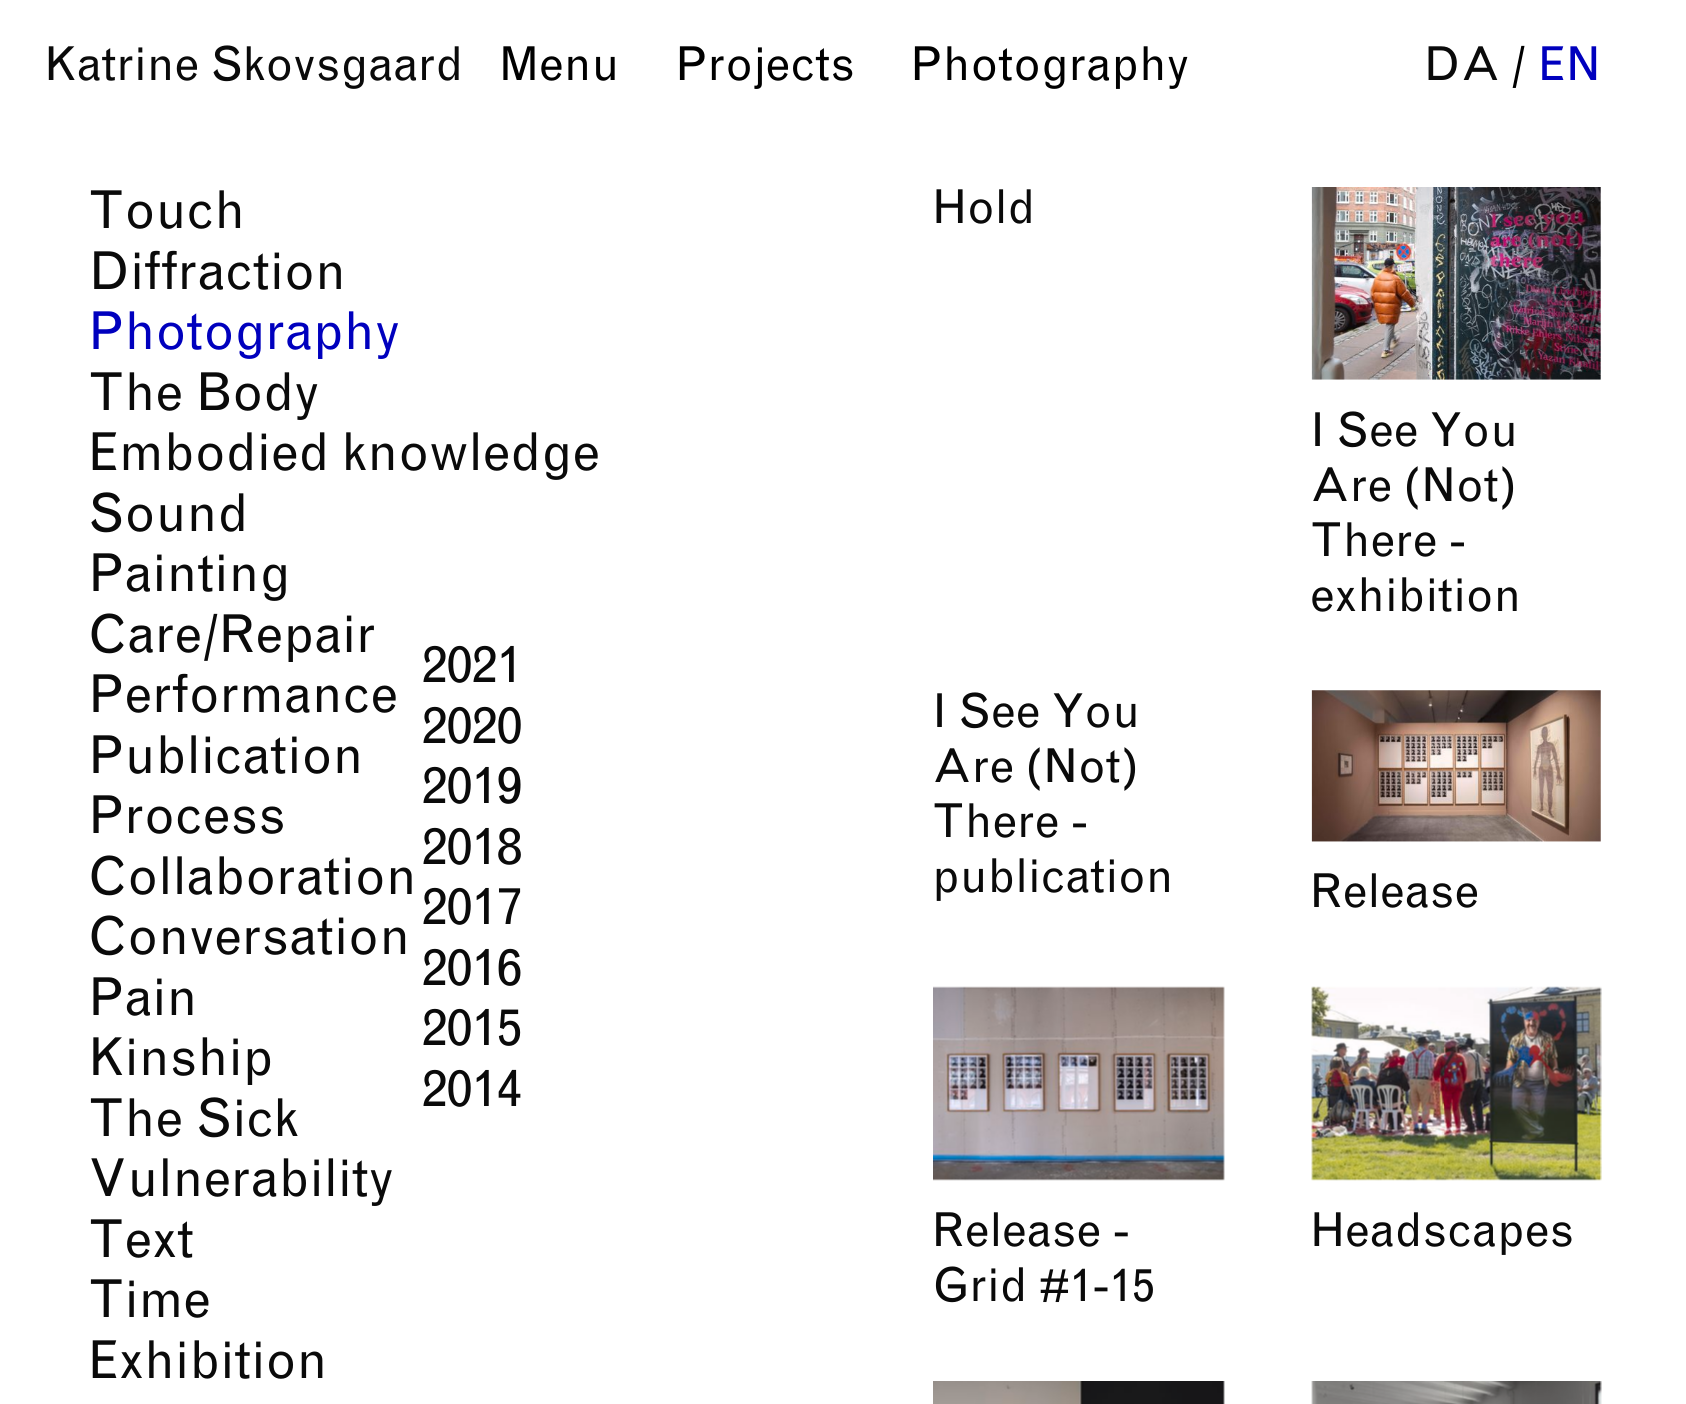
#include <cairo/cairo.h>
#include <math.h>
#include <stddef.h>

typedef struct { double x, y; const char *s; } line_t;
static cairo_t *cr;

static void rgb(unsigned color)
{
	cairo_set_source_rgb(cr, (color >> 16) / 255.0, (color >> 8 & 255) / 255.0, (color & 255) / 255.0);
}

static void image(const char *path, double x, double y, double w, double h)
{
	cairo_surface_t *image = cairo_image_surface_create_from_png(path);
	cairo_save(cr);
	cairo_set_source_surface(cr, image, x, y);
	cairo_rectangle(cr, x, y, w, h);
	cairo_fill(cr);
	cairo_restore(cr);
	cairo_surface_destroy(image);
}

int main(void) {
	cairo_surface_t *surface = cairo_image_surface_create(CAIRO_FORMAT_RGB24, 1686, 1404);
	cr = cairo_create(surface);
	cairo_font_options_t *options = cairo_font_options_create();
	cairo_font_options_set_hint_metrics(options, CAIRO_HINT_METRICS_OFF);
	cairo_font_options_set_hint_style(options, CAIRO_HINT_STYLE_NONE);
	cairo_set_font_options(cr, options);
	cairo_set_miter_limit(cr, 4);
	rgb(0xffffff);
	cairo_paint(cr);
	image("img/1.png", 1311, 187, 290, 193);
	image("img/2.png", 1311, 690, 290, 152);
	image("img/3.png", 933, 986, 292, 195);
	image("img/4.png", 1311, 986, 291, 195);
	image("img/5.png", 933, 1381, 292, 23);
	image("img/6.png", 1311, 1381, 291, 23);
	cairo_select_font_face(cr, "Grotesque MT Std", CAIRO_FONT_SLANT_NORMAL, CAIRO_FONT_WEIGHT_NORMAL);
	cairo_set_font_size(cr, 46.75);
	rgb(0x0a0a0a);
	cairo_move_to(cr, 44, 80);
	cairo_show_text(cr, "Katrine Skovsgaard");
	rgb(0x000000);
	{
		static const line_t items[] = {
			{499, 80, "Menu"},
			{675, 80, "Projects"},
			{910, 80, "Photography"},
		};
		for (size_t i = 0; i < sizeof items / sizeof *items; i++) {
			cairo_move_to(cr, items[i].x, items[i].y);
			cairo_show_text(cr, items[i].s);
		}
	}
	rgb(0x0a0a0a);
	cairo_move_to(cr, 1423, 80);
	cairo_show_text(cr, "DA");
	rgb(0x000000);
	cairo_move_to(cr, 1511, 80);
	cairo_show_text(cr, "/");
	rgb(0x0000be);
	cairo_move_to(cr, 1538, 80);
	cairo_show_text(cr, "EN");
	cairo_set_font_size(cr, 52.25);
	rgb(0x0a0a0a);
	cairo_move_to(cr, 88, 228);
	cairo_show_text(cr, "Touch");
	cairo_move_to(cr, 88, 289);
	cairo_show_text(cr, "Diffraction");
	rgb(0x0000be);
	cairo_move_to(cr, 88, 349);
	cairo_show_text(cr, "Photography");
	rgb(0x0a0a0a);
	{
		static const line_t items[] = {
			{88, 410, "The Body"},
			{88, 470, "Embodied knowledge"},
			{88, 531, "Sound"},
			{88, 591, "Painting"},
			{88, 652, "Care/Repair"},
			{88, 712, "Performance"},
			{88, 773, "Publication"},
			{88, 833, "Process"},
			{88, 894, "Collaboration"},
			{88, 954, "Conversation"},
			{88, 1015, "Pain"},
			{88, 1075, "Kinship"},
			{88, 1136, "The Sick"},
			{88, 1196, "Vulnerability"},
			{88, 1257, "Text"},
			{88, 1317, "Time"},
			{88, 1378, "Exhibition"},
			{422, 682, "2021"},
			{422, 743, "2020"},
			{422, 803, "2019"},
			{422, 864, "2018"},
			{422, 924, "2017"},
			{422, 985, "2016"},
			{422, 1045, "2015"},
			{422, 1106, "2014"},
		};
		for (size_t i = 0; i < sizeof items / sizeof *items; i++) {
			cairo_move_to(cr, items[i].x, items[i].y);
			cairo_show_text(cr, items[i].s);
		}
	}
	cairo_set_font_size(cr, 46.75);
	{
		static const line_t items[] = {
			{932, 223, "Hold"},
			{1310, 446, "I See You"},
			{1310, 501, "Are (Not)"},
			{1310, 556, "There -"},
			{1310, 611, "exhibition"},
			{932, 727, "I See You"},
			{932, 782, "Are (Not)"},
			{932, 837, "There -"},
			{932, 892, "publication"},
			{1310, 907, "Release"},
			{932, 1246, "Release -"},
			{932, 1301, "Grid #1-15"},
			{1310, 1246, "Headscapes"},
		};
		for (size_t i = 0; i < sizeof items / sizeof *items; i++) {
			cairo_move_to(cr, items[i].x, items[i].y);
			cairo_show_text(cr, items[i].s);
		}
	}
	cairo_surface_write_to_png(surface, "page.png");
	cairo_font_options_destroy(options);
	cairo_destroy(cr);
	cairo_surface_destroy(surface);
	return 0;
}
